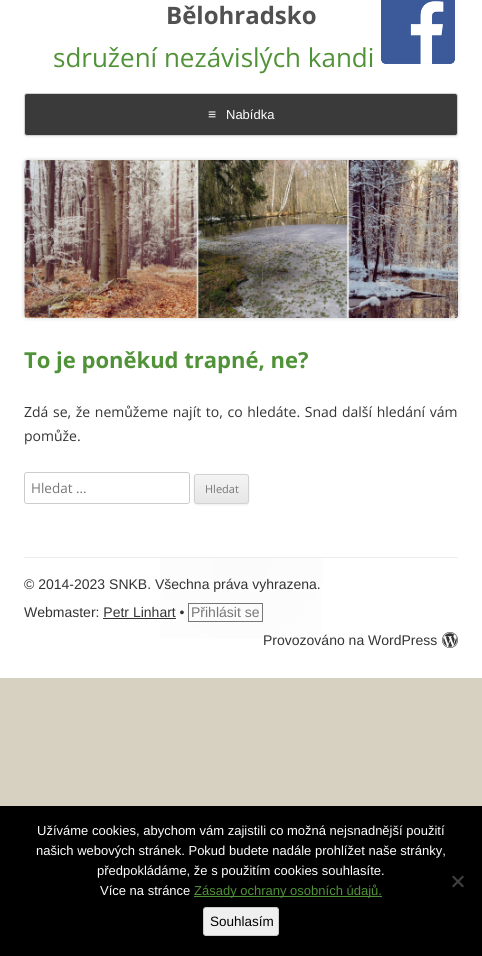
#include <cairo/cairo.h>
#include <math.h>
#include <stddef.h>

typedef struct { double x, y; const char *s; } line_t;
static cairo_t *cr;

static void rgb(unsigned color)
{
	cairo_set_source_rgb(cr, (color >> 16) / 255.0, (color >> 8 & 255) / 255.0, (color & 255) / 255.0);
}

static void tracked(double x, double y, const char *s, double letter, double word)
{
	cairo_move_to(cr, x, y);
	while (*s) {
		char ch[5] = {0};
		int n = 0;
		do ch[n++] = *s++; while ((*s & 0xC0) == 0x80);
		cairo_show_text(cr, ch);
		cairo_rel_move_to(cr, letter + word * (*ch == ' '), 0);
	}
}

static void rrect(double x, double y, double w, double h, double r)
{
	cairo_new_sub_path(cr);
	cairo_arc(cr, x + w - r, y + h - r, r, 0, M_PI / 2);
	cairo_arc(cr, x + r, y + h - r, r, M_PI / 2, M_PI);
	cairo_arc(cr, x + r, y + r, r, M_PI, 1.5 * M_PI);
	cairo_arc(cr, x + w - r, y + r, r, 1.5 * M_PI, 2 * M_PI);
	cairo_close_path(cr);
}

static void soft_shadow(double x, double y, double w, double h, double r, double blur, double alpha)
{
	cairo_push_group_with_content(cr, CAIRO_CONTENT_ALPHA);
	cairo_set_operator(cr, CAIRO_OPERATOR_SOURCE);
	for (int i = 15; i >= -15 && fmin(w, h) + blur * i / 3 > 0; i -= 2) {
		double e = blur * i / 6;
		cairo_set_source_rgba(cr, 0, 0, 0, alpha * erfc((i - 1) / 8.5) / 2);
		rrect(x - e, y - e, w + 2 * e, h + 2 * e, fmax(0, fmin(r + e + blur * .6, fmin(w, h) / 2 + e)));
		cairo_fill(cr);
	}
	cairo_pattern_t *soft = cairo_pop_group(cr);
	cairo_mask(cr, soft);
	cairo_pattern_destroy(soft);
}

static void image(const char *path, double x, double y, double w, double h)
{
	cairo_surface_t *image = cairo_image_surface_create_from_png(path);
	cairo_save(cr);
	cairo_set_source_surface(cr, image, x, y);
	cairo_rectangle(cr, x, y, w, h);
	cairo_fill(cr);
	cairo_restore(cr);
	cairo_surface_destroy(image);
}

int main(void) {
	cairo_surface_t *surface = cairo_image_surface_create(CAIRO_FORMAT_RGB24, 482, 956);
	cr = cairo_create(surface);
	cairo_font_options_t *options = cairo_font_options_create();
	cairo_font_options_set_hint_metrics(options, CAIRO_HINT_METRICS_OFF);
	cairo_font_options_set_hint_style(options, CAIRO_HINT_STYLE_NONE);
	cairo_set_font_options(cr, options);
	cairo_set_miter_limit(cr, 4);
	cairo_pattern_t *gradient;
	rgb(0xd7d1c1);
	cairo_paint(cr);
	rgb(0xffffff);
	cairo_rectangle(cr, 0, 0, 482, 678);
	cairo_fill(cr);
	image("img/1.png", 381, 0, 74, 64);
	rgb(0x404040);
	soft_shadow(24, 94, 434, 43, 3, 1, 0.1);
	rgb(0x3a3a3a);
	rrect(24.5, 93.5, 433, 42, 2.5);
	cairo_fill_preserve(cr);
	rgb(0xd2d2d2);
	cairo_set_line_width(cr, 1);
	cairo_stroke(cr);
	rgb(0x000000);
	soft_shadow(24, 160, 434, 158, 3, 2, 0.2);
	image("img/2.png", 24, 160, 434, 158);
	rrect(24.5, 472.5, 165, 31, 2.5);
	rgb(0xcccccc);
	cairo_stroke(cr);
	rgb(0x404040);
	soft_shadow(194, 475, 55, 30, 3, 1, 0.1);
	cairo_save(cr);
	rrect(194, 474, 55, 30, 3);
	cairo_clip(cr);
	gradient = cairo_pattern_create_linear(222, 475, 222, 503);
	cairo_pattern_add_color_stop_rgba(gradient, 0, 0.957, 0.957, 0.957, 1);
	cairo_pattern_add_color_stop_rgba(gradient, 1, 0.902, 0.902, 0.902, 1);
	cairo_set_source(cr, gradient);
	cairo_pattern_destroy(gradient);
	cairo_rectangle(cr, 194, 475, 55, 28);
	cairo_fill(cr);
	cairo_restore(cr);
	rrect(194.5, 474.5, 54, 29, 2.5);
	rgb(0xd2d2d2);
	cairo_stroke(cr);
	gradient = cairo_pattern_create_radial(241, 558, 0, 241, 558, 217);
	cairo_pattern_add_color_stop_rgba(gradient, 0, 0.984, 0.984, 0.984, 1);
	cairo_pattern_add_color_stop_rgba(gradient, 1, 1, 1, 1, 1);
	cairo_set_source(cr, gradient);
	cairo_pattern_destroy(gradient);
	cairo_rectangle(cr, 160, 558, 162, 81);
	cairo_fill(cr);
	rgb(0xededed);
	cairo_rectangle(cr, 24, 557, 434, 1);
	cairo_fill(cr);
	rgb(0x333333);
	cairo_rectangle(cr, 103, 618, 73, 1);
	cairo_fill(cr);
	cairo_rectangle(cr, 188.5, 603.5, 74, 18);
	rgb(0x777777);
	cairo_stroke(cr);
	image("img/3.png", 442, 632, 16, 16);
	rgb(0x000000);
	cairo_rectangle(cr, 0, 806, 482, 150);
	cairo_fill(cr);
	rgb(0x509237);
	cairo_rectangle(cr, 194, 896, 188, 1);
	cairo_fill(cr);
	rgb(0x404040);
	cairo_new_path(cr);
	cairo_move_to(cr, 462.5, 875.5);
	cairo_line_to(cr, 464, 877);
	cairo_line_to(cr, 453.5, 887.5);
	cairo_line_to(cr, 452, 886);
	cairo_close_path(cr);
	cairo_fill(cr);
	cairo_new_path(cr);
	cairo_move_to(cr, 452, 877);
	cairo_line_to(cr, 453.5, 875.5);
	cairo_line_to(cr, 464, 886);
	cairo_line_to(cr, 462.5, 887.5);
	cairo_close_path(cr);
	cairo_fill(cr);
	rgb(0xefefef);
	rrect(203.5, 907.5, 75, 28, 2.5);
	cairo_fill_preserve(cr);
	rgb(0xcccccc);
	cairo_stroke(cr);
	cairo_select_font_face(cr, "Open Sans", CAIRO_FONT_SLANT_NORMAL, CAIRO_FONT_WEIGHT_BOLD);
	cairo_set_font_size(cr, 24);
	rgb(0x515151);
	cairo_move_to(cr, 166, 24);
	cairo_show_text(cr, "Bělohradsko");
	cairo_select_font_face(cr, "Open Sans", CAIRO_FONT_SLANT_NORMAL, CAIRO_FONT_WEIGHT_NORMAL);
	cairo_set_font_size(cr, 26);
	rgb(0x509237);
	cairo_move_to(cr, 53, 67);
	cairo_show_text(cr, "sdružení nezávislých kandi");
	cairo_select_font_face(cr, "Liberation Sans", CAIRO_FONT_SLANT_NORMAL, CAIRO_FONT_WEIGHT_NORMAL);
	cairo_set_font_size(cr, 14);
	rgb(0xffffff);
	cairo_move_to(cr, 208, 119);
	cairo_show_text(cr, "≡");
	cairo_set_font_size(cr, 13);
	cairo_move_to(cr, 226, 119);
	cairo_show_text(cr, "Nabídka");
	cairo_select_font_face(cr, "Open Sans", CAIRO_FONT_SLANT_NORMAL, CAIRO_FONT_WEIGHT_BOLD);
	cairo_set_font_size(cr, 22);
	rgb(0x509237);
	cairo_move_to(cr, 24, 368);
	cairo_show_text(cr, "To je poněkud trapné, ne?");
	cairo_select_font_face(cr, "Open Sans", CAIRO_FONT_SLANT_NORMAL, CAIRO_FONT_WEIGHT_NORMAL);
	cairo_set_font_size(cr, 14);
	rgb(0x333333);
	tracked(24, 417, "Zdá se, že nemůžeme najít to, co hledáte. Snad další hledání vám", 0, 1);
	cairo_move_to(cr, 24, 441);
	cairo_show_text(cr, "pomůže.");
	cairo_set_font_size(cr, 13.5);
	rgb(0x777777);
	cairo_move_to(cr, 31, 493);
	cairo_show_text(cr, "Hledat …");
	cairo_set_font_size(cr, 11);
	cairo_move_to(cr, 205, 493);
	cairo_show_text(cr, "Hledat");
	cairo_select_font_face(cr, "Liberation Sans", CAIRO_FONT_SLANT_NORMAL, CAIRO_FONT_WEIGHT_NORMAL);
	cairo_set_font_size(cr, 14);
	rgb(0x333333);
	cairo_move_to(cr, 24, 589);
	cairo_show_text(cr, "© 2014-2023 SNKB. Všechna práva vyhrazena.");
	cairo_move_to(cr, 24, 617);
	cairo_show_text(cr, "Webmaster: Petr Linhart •");
	rgb(0x777777);
	cairo_move_to(cr, 191, 617);
	cairo_show_text(cr, "Přihlásit se");
	rgb(0x333333);
	cairo_move_to(cr, 263, 645);
	cairo_show_text(cr, "Provozováno na WordPress");
	cairo_set_font_size(cr, 13);
	rgb(0xffffff);
	{
		static const line_t items[] = {
			{37, 835, "Užíváme cookies, abychom vám zajistili co možná nejsnadnější použití"},
			{36, 855, "našich webových stránek. Pokud budete nadále prohlížet naše stránky,"},
			{97, 875, "předpokládáme, že s použitím cookies souhlasíte."},
			{100, 895, "Více na stránce"},
		};
		for (size_t i = 0; i < sizeof items / sizeof *items; i++) {
			cairo_move_to(cr, items[i].x, items[i].y);
			cairo_show_text(cr, items[i].s);
		}
	}
	rgb(0x509237);
	cairo_move_to(cr, 194, 895);
	cairo_show_text(cr, "Zásady ochrany osobních údajů.");
	cairo_set_font_size(cr, 13.5);
	rgb(0x000000);
	cairo_move_to(cr, 210, 926);
	cairo_show_text(cr, "Souhlasím");
	cairo_surface_write_to_png(surface, "page.png");
	cairo_font_options_destroy(options);
	cairo_destroy(cr);
	cairo_surface_destroy(surface);
	return 0;
}
